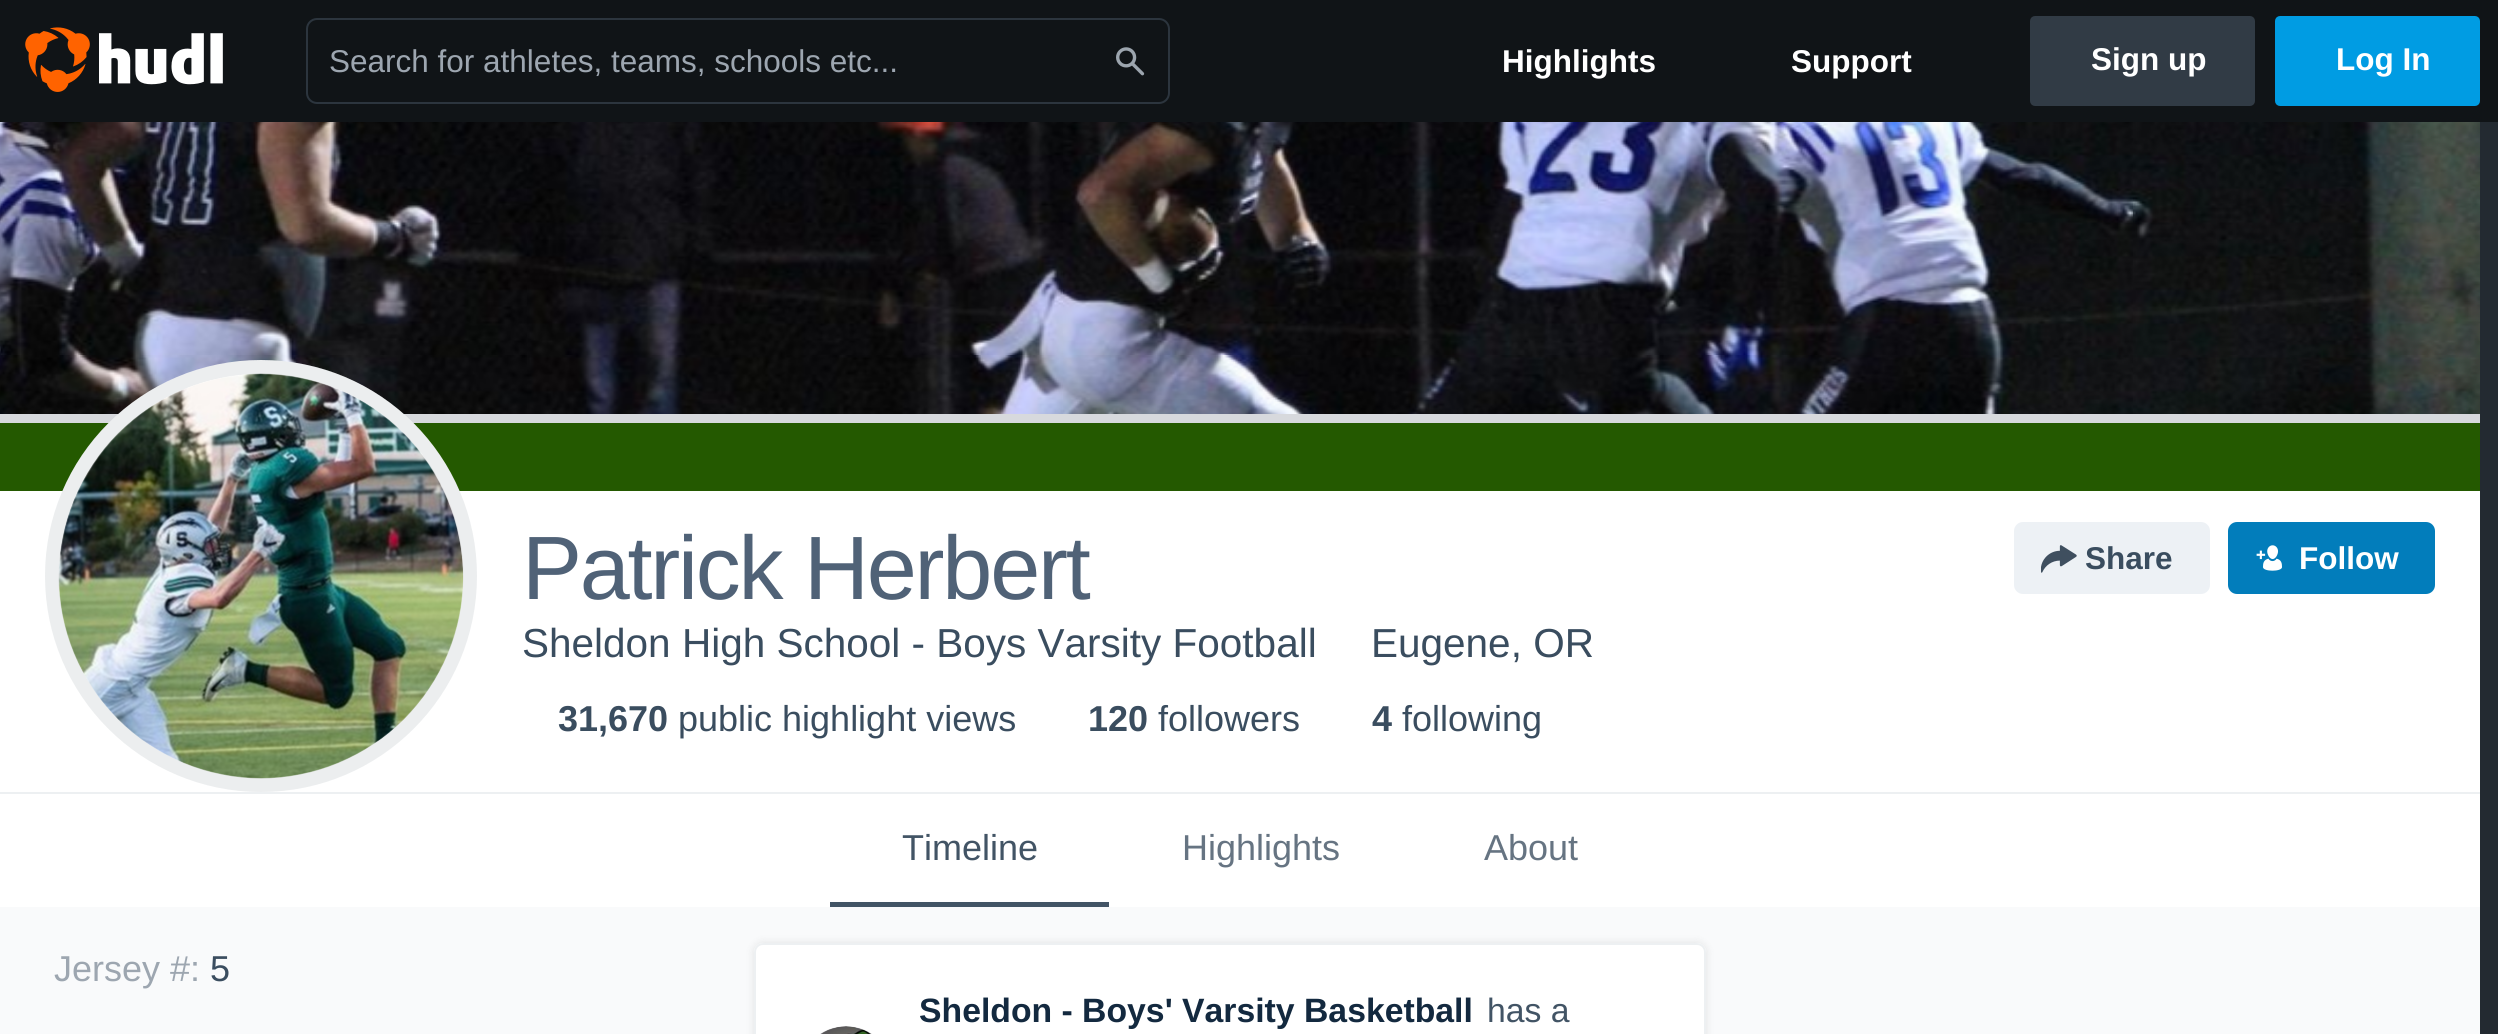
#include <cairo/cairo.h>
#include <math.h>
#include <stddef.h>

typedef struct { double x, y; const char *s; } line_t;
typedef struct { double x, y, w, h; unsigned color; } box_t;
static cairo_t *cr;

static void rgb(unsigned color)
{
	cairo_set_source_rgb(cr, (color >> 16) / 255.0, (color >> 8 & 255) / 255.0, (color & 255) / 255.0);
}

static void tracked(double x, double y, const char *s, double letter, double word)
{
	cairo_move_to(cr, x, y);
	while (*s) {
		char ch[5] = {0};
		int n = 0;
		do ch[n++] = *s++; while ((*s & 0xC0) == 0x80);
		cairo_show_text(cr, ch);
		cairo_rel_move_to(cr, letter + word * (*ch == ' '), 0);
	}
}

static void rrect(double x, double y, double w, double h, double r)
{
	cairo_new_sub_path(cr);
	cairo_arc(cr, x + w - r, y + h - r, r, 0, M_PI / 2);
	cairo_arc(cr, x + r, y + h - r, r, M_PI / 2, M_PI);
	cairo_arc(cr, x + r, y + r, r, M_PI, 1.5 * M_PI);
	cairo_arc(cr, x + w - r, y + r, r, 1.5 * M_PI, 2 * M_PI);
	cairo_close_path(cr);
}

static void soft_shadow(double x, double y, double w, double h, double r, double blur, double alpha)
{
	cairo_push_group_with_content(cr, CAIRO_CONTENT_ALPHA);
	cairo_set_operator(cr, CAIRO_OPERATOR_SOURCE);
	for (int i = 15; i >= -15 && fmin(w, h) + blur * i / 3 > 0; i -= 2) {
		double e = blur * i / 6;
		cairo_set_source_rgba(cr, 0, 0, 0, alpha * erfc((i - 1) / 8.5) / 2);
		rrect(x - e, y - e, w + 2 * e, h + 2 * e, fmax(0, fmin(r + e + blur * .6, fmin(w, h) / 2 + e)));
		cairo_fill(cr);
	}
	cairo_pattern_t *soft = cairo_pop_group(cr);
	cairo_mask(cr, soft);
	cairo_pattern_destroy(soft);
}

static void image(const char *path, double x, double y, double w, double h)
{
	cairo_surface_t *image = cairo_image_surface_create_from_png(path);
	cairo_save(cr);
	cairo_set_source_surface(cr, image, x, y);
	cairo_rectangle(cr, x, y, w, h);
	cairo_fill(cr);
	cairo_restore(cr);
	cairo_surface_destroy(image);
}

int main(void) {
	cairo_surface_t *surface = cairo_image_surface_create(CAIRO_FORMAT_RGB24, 2498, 1034);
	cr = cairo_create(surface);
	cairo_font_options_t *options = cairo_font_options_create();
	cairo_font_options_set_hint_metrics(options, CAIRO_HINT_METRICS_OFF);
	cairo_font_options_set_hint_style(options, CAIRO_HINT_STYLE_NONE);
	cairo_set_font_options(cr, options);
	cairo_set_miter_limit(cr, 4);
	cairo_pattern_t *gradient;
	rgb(0x232a31);
	cairo_paint(cr);
	rgb(0x101417);
	cairo_rectangle(cr, 0, 0, 2498, 122);
	cairo_fill(cr);
	image("img/1.png", 25, 27, 198, 65);
	rrect(307, 19, 862, 84, 10);
	rgb(0x2c353e);
	cairo_stroke(cr);
	image("img/2.png", 1116, 47, 29, 29);
	rgb(0x313b45);
	rrect(2033.5, 19.5, 218, 83, 1.5);
	cairo_fill_preserve(cr);
	cairo_set_line_width(cr, 7);
	cairo_stroke(cr);
	rgb(0x009ce3);
	rrect(2278.5, 19.5, 198, 83, 1.5);
	cairo_fill_preserve(cr);
	cairo_stroke(cr);
	image("img/3.png", 0, 122, 2480, 292);
	gradient = cairo_pattern_create_linear(1240, 414, 1240, 792);
	cairo_pattern_add_color_stop_rgba(gradient, 0, 1, 1, 1, 0.85);
	cairo_pattern_add_color_stop_rgba(gradient, 0.2, 1, 1, 1, 1);
	cairo_set_source(cr, gradient);
	cairo_pattern_destroy(gradient);
	cairo_rectangle(cr, 0, 491, 2480, 301);
	cairo_fill(cr);
	{
		static const box_t items[] = {
			{0, 792, 2480, 2, 0xedf0f2},
			{0, 414, 2480, 9, 0xd7d9dd},
			{0, 423, 2480, 68, 0x245900},
		};
		for (size_t i = 0; i < sizeof items / sizeof *items; i++) {
			rgb(items[i].color);
			cairo_rectangle(cr, items[i].x, items[i].y, items[i].w, items[i].h);
			cairo_fill(cr);
		}
	}
	rgb(0xffffff);
	cairo_arc(cr, 261, 576, 216, 0, 2 * M_PI);
	cairo_fill(cr);
	cairo_arc(cr, 261, 576, 209, 0, 2 * M_PI);
	cairo_set_source_rgba(cr, 0.271, 0.322, 0.369, 0.1);
	cairo_set_line_width(cr, 14);
	cairo_stroke(cr);
	image("img/4.png", 58, 373, 406, 406);
	rgb(0xedf1f5);
	rrect(2014, 522, 196, 72, 9);
	cairo_fill(cr);
	image("img/5.png", 2041, 545, 36, 28);
	rgb(0x027dbb);
	rrect(2228, 522, 207, 72, 9);
	cairo_fill(cr);
	image("img/6.png", 2256, 545, 26, 26);
	{
		static const box_t items[] = {
			{0, 794, 2480, 113, 0xffffff},
			{830, 902, 279, 5, 0x425465},
			{0, 907, 2480, 127, 0xf9fafb},
		};
		for (size_t i = 0; i < sizeof items / sizeof *items; i++) {
			rgb(items[i].color);
			cairo_rectangle(cr, items[i].x, items[i].y, items[i].w, items[i].h);
			cairo_fill(cr);
		}
	}
	rgb(0x000000);
	soft_shadow(754, 943, 952, 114, 9, 4.5, 0.1);
	rgb(0xffffff);
	cairo_new_path(cr);
	cairo_move_to(cr, 763, 943);
	cairo_line_to(cr, 1697, 943);
	cairo_curve_to(cr, 1702, 943, 1706, 947, 1706, 952);
	cairo_line_to(cr, 1706, 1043);
	cairo_line_to(cr, 754, 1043);
	cairo_line_to(cr, 754, 952);
	cairo_curve_to(cr, 754, 947, 758, 943, 763, 943);
	cairo_close_path(cr);
	cairo_fill(cr);
	rrect(755, 944, 950, 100, 8);
	rgb(0xedf0f2);
	cairo_set_line_width(cr, 2);
	cairo_stroke(cr);
	image("img/7.png", 820, 1026, 52, 8);
	cairo_select_font_face(cr, "Liberation Sans", CAIRO_FONT_SLANT_NORMAL, CAIRO_FONT_WEIGHT_NORMAL);
	cairo_set_font_size(cr, 31.5);
	rgb(0x9da6b0);
	cairo_move_to(cr, 329, 72);
	cairo_show_text(cr, "Search for athletes, teams, schools etc...");
	cairo_select_font_face(cr, "Liberation Sans", CAIRO_FONT_SLANT_NORMAL, CAIRO_FONT_WEIGHT_BOLD);
	rgb(0xffffff);
	{
		static const line_t items[] = {
			{1502, 72, "Highlights"},
			{1791, 72, "Support"},
			{2091, 70, "Sign up"},
			{2336, 70, "Log In"},
		};
		for (size_t i = 0; i < sizeof items / sizeof *items; i++) {
			cairo_move_to(cr, items[i].x, items[i].y);
			cairo_show_text(cr, items[i].s);
		}
	}
	cairo_select_font_face(cr, "Liberation Sans", CAIRO_FONT_SLANT_NORMAL, CAIRO_FONT_WEIGHT_NORMAL);
	cairo_set_font_size(cr, 90);
	rgb(0x506277);
	tracked(522, 599, "Patrick Herbert", -2.25, 0);
	cairo_select_font_face(cr, "Liberation Sans", CAIRO_FONT_SLANT_NORMAL, CAIRO_FONT_WEIGHT_BOLD);
	cairo_set_font_size(cr, 31.5);
	rgb(0x3a4d5f);
	cairo_move_to(cr, 2085, 569);
	cairo_show_text(cr, "Share");
	rgb(0xffffff);
	cairo_move_to(cr, 2299, 569);
	cairo_show_text(cr, "Follow");
	cairo_select_font_face(cr, "Liberation Sans", CAIRO_FONT_SLANT_NORMAL, CAIRO_FONT_WEIGHT_NORMAL);
	cairo_set_font_size(cr, 40.5);
	rgb(0x3a4d5f);
	cairo_move_to(cr, 522, 657);
	cairo_show_text(cr, "Sheldon High School - Boys Varsity Football");
	cairo_move_to(cr, 1371, 657);
	cairo_show_text(cr, "Eugene, OR");
	cairo_select_font_face(cr, "Liberation Sans", CAIRO_FONT_SLANT_NORMAL, CAIRO_FONT_WEIGHT_BOLD);
	cairo_set_font_size(cr, 36);
	cairo_move_to(cr, 558, 731);
	cairo_show_text(cr, "31,670");
	cairo_select_font_face(cr, "Liberation Sans", CAIRO_FONT_SLANT_NORMAL, CAIRO_FONT_WEIGHT_NORMAL);
	cairo_move_to(cr, 678, 731);
	cairo_show_text(cr, "public highlight views");
	cairo_select_font_face(cr, "Liberation Sans", CAIRO_FONT_SLANT_NORMAL, CAIRO_FONT_WEIGHT_BOLD);
	cairo_move_to(cr, 1088, 731);
	cairo_show_text(cr, "120");
	cairo_select_font_face(cr, "Liberation Sans", CAIRO_FONT_SLANT_NORMAL, CAIRO_FONT_WEIGHT_NORMAL);
	cairo_move_to(cr, 1158, 731);
	cairo_show_text(cr, "followers");
	cairo_select_font_face(cr, "Liberation Sans", CAIRO_FONT_SLANT_NORMAL, CAIRO_FONT_WEIGHT_BOLD);
	cairo_move_to(cr, 1372, 731);
	cairo_show_text(cr, "4");
	cairo_select_font_face(cr, "Liberation Sans", CAIRO_FONT_SLANT_NORMAL, CAIRO_FONT_WEIGHT_NORMAL);
	cairo_move_to(cr, 1402, 731);
	cairo_show_text(cr, "following");
	rgb(0x425465);
	cairo_move_to(cr, 902, 860);
	cairo_show_text(cr, "Timeline");
	rgb(0x667482);
	cairo_move_to(cr, 1182, 860);
	cairo_show_text(cr, "Highlights");
	cairo_move_to(cr, 1484, 860);
	cairo_show_text(cr, "About");
	rgb(0x9da6b0);
	cairo_move_to(cr, 54, 981);
	cairo_show_text(cr, "Jersey #:");
	rgb(0x3a4d5f);
	cairo_move_to(cr, 210, 981);
	cairo_show_text(cr, "5");
	cairo_select_font_face(cr, "Liberation Sans", CAIRO_FONT_SLANT_NORMAL, CAIRO_FONT_WEIGHT_BOLD);
	cairo_set_font_size(cr, 33.75);
	rgb(0x13293f);
	cairo_move_to(cr, 919, 1022);
	cairo_show_text(cr, "Sheldon - Boys' Varsity Basketball");
	cairo_select_font_face(cr, "Liberation Sans", CAIRO_FONT_SLANT_NORMAL, CAIRO_FONT_WEIGHT_NORMAL);
	rgb(0x425465);
	cairo_move_to(cr, 1487, 1022);
	cairo_show_text(cr, "has a");
	cairo_surface_write_to_png(surface, "page.png");
	cairo_font_options_destroy(options);
	cairo_destroy(cr);
	cairo_surface_destroy(surface);
	return 0;
}
